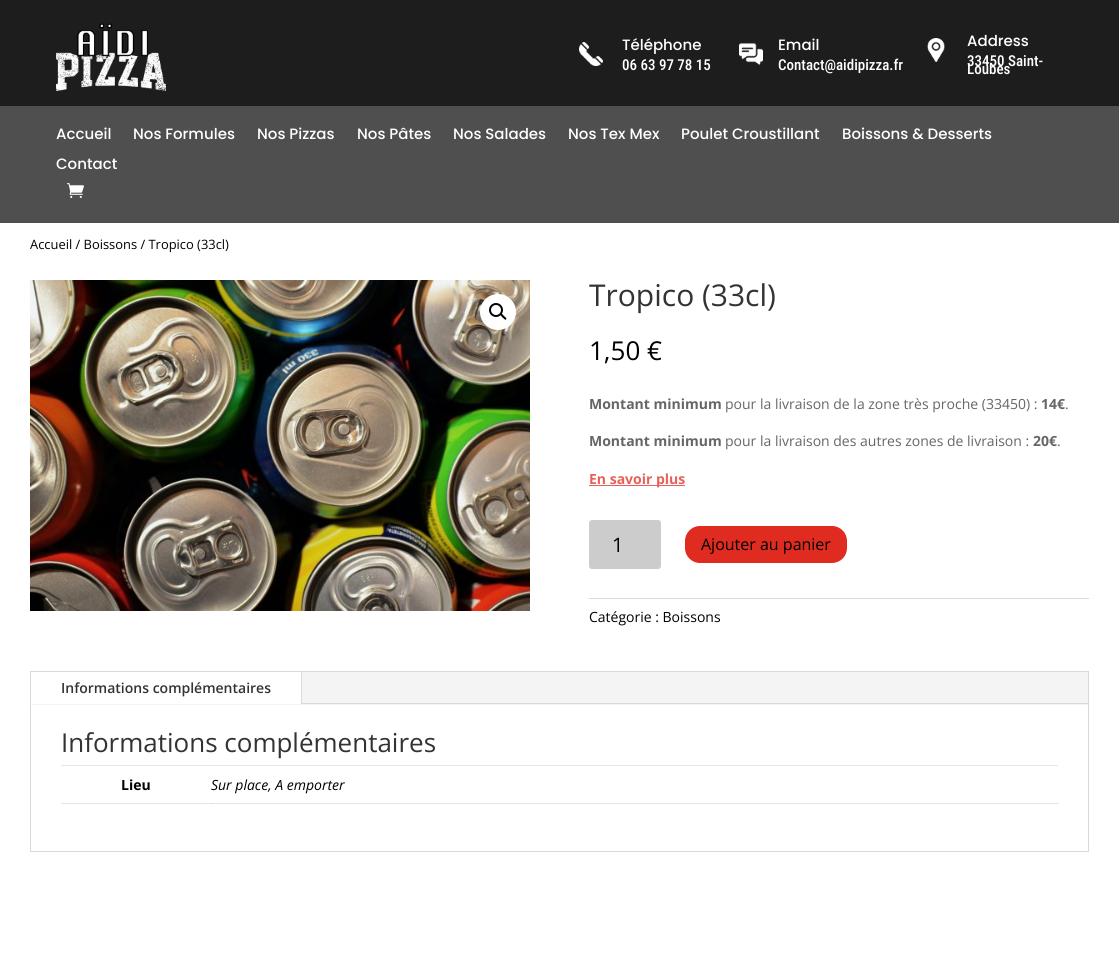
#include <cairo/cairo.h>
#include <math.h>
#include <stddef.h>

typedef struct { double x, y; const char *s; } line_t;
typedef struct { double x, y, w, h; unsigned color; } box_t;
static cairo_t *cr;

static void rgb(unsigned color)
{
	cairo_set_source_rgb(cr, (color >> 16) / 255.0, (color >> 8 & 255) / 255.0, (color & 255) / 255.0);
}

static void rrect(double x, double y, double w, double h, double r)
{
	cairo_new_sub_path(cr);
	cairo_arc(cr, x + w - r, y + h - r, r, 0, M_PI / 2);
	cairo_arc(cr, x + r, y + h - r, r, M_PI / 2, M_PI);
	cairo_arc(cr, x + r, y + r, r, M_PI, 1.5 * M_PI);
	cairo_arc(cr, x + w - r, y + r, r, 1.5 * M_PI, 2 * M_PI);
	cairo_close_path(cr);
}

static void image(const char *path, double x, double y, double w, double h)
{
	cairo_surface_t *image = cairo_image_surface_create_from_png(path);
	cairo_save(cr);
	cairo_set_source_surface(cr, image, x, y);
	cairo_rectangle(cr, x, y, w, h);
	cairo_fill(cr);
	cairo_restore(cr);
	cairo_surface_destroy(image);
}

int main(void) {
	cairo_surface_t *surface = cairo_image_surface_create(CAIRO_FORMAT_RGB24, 1119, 955);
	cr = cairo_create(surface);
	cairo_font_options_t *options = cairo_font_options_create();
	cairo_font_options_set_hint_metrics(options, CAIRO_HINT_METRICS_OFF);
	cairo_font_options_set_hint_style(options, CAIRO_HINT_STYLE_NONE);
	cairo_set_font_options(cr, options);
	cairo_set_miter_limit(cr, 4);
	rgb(0xffffff);
	cairo_paint(cr);
	rgb(0xe6e6e6);
	cairo_rectangle(cr, 61, 803, 151, 1);
	cairo_fill(cr);
	rgb(0x1d1d1d);
	cairo_rectangle(cr, 0, 0, 1119, 106);
	cairo_fill(cr);
	image("img/1.png", 56, 23, 110, 68);
	image("img/2.png", 579, 42, 24, 24);
	image("img/3.png", 739, 43, 24, 22);
	image("img/4.png", 927, 38, 18, 24);
	rgb(0x4f4f4f);
	cairo_rectangle(cr, 0, 106, 1119, 117);
	cairo_fill(cr);
	image("img/5.png", 67, 183, 17, 15);
	image("img/6.png", 30, 280, 500, 331);
	rgb(0xffffff);
	cairo_arc(cr, 498, 312, 18, 0, 2 * M_PI);
	cairo_fill(cr);
	cairo_arc(cr, 496, 310, 6, 0, 2 * M_PI);
	rgb(0x000000);
	cairo_stroke(cr);
	cairo_new_path(cr);
	cairo_move_to(cr, 500.5, 314);
	cairo_curve_to(cr, 501.5, 312.5, 503.5, 315.5, 504, 316);
	cairo_curve_to(cr, 504.5, 316.5, 507.5, 318.5, 506, 319.5);
	cairo_curve_to(cr, 505, 320.5, 503.5, 318, 502.5, 317.5);
	cairo_curve_to(cr, 502, 316.5, 499.5, 315, 500.5, 314);
	cairo_close_path(cr);
	cairo_fill(cr);
	rgb(0xe86058);
	cairo_rectangle(cr, 589, 485, 96, 1);
	cairo_fill(cr);
	rgb(0xcccccc);
	rrect(589, 520, 72, 49, 3);
	cairo_fill(cr);
	rgb(0xe02b20);
	rrect(685, 526, 162, 37, 15);
	cairo_fill(cr);
	rgb(0xdadada);
	cairo_rectangle(cr, 589, 598, 500, 1);
	cairo_fill(cr);
	cairo_rectangle(cr, 30.5, 671.5, 1058, 180);
	rgb(0xd9d9d9);
	cairo_set_line_width(cr, 1);
	cairo_stroke(cr);
	{
		static const box_t items[] = {
			{31, 672, 1057, 33, 0xf4f4f4},
			{31, 672, 270, 32, 0xffffff},
			{301, 672, 1, 32, 0xd9d9d9},
			{302, 703, 786, 1, 0xd9d9d9},
			{61, 765, 997, 1, 0xe6e6e6},
			{211, 803, 848, 1, 0xe6e6e6},
			{211, 803, 1, 1, 0xcfcfcf},
		};
		for (size_t i = 0; i < sizeof items / sizeof *items; i++) {
			rgb(items[i].color);
			cairo_rectangle(cr, items[i].x, items[i].y, items[i].w, items[i].h);
			cairo_fill(cr);
		}
	}
	cairo_select_font_face(cr, "Poppins Medium", CAIRO_FONT_SLANT_NORMAL, CAIRO_FONT_WEIGHT_NORMAL);
	cairo_set_font_size(cr, 15);
	rgb(0xffffff);
	cairo_move_to(cr, 622, 50);
	cairo_show_text(cr, "Téléphone");
	cairo_select_font_face(cr, "Roboto Condensed Medium", CAIRO_FONT_SLANT_NORMAL, CAIRO_FONT_WEIGHT_NORMAL);
	cairo_move_to(cr, 622, 70);
	cairo_show_text(cr, "06 63 97 78 15");
	cairo_select_font_face(cr, "Poppins Medium", CAIRO_FONT_SLANT_NORMAL, CAIRO_FONT_WEIGHT_NORMAL);
	cairo_move_to(cr, 778, 50);
	cairo_show_text(cr, "Email");
	cairo_select_font_face(cr, "Roboto Condensed Medium", CAIRO_FONT_SLANT_NORMAL, CAIRO_FONT_WEIGHT_NORMAL);
	cairo_move_to(cr, 778, 70);
	cairo_show_text(cr, "Contact@aidipizza.fr");
	cairo_select_font_face(cr, "Poppins Medium", CAIRO_FONT_SLANT_NORMAL, CAIRO_FONT_WEIGHT_NORMAL);
	cairo_move_to(cr, 967, 46);
	cairo_show_text(cr, "Address");
	cairo_select_font_face(cr, "Roboto Condensed Medium", CAIRO_FONT_SLANT_NORMAL, CAIRO_FONT_WEIGHT_NORMAL);
	cairo_move_to(cr, 967, 66);
	cairo_show_text(cr, "33450 Saint-");
	cairo_move_to(cr, 967, 74);
	cairo_show_text(cr, "Loubès");
	cairo_select_font_face(cr, "Poppins Medium", CAIRO_FONT_SLANT_NORMAL, CAIRO_FONT_WEIGHT_NORMAL);
	{
		static const line_t items[] = {
			{56, 139, "Accueil"},
			{133, 139, "Nos Formules"},
			{257, 139, "Nos Pizzas"},
			{357, 139, "Nos Pâtes"},
			{453, 139, "Nos Salades"},
			{568, 139, "Nos Tex Mex"},
			{681, 139, "Poulet Croustillant"},
			{842, 139, "Boissons & Desserts"},
			{56, 169, "Contact"},
		};
		for (size_t i = 0; i < sizeof items / sizeof *items; i++) {
			cairo_move_to(cr, items[i].x, items[i].y);
			cairo_show_text(cr, items[i].s);
		}
	}
	cairo_select_font_face(cr, "Open Sans", CAIRO_FONT_SLANT_NORMAL, CAIRO_FONT_WEIGHT_NORMAL);
	cairo_set_font_size(cr, 12.9);
	rgb(0x000000);
	cairo_move_to(cr, 30, 249);
	cairo_show_text(cr, "Accueil / Boissons / Tropico (33cl)");
	cairo_set_font_size(cr, 30);
	rgb(0x333333);
	cairo_move_to(cr, 589, 306);
	cairo_show_text(cr, "Tropico (33cl)");
	cairo_set_font_size(cr, 26);
	rgb(0x000000);
	cairo_move_to(cr, 589, 360);
	cairo_show_text(cr, "1,50 €");
	cairo_select_font_face(cr, "Open Sans", CAIRO_FONT_SLANT_NORMAL, CAIRO_FONT_WEIGHT_BOLD);
	cairo_set_font_size(cr, 14);
	rgb(0x666666);
	cairo_move_to(cr, 589, 409);
	cairo_show_text(cr, "Montant minimum");
	cairo_select_font_face(cr, "Open Sans", CAIRO_FONT_SLANT_NORMAL, CAIRO_FONT_WEIGHT_NORMAL);
	cairo_move_to(cr, 725, 409);
	cairo_show_text(cr, "pour la livraison de la zone très proche (33450) :");
	cairo_select_font_face(cr, "Open Sans", CAIRO_FONT_SLANT_NORMAL, CAIRO_FONT_WEIGHT_BOLD);
	cairo_move_to(cr, 1041, 409);
	cairo_show_text(cr, "14€");
	cairo_select_font_face(cr, "Open Sans", CAIRO_FONT_SLANT_NORMAL, CAIRO_FONT_WEIGHT_NORMAL);
	cairo_move_to(cr, 1065, 409);
	cairo_show_text(cr, ".");
	cairo_select_font_face(cr, "Open Sans", CAIRO_FONT_SLANT_NORMAL, CAIRO_FONT_WEIGHT_BOLD);
	cairo_move_to(cr, 589, 446);
	cairo_show_text(cr, "Montant minimum");
	cairo_select_font_face(cr, "Open Sans", CAIRO_FONT_SLANT_NORMAL, CAIRO_FONT_WEIGHT_NORMAL);
	cairo_move_to(cr, 725, 446);
	cairo_show_text(cr, "pour la livraison des autres zones de livraison :");
	cairo_select_font_face(cr, "Open Sans", CAIRO_FONT_SLANT_NORMAL, CAIRO_FONT_WEIGHT_BOLD);
	cairo_move_to(cr, 1033, 446);
	cairo_show_text(cr, "20€");
	cairo_select_font_face(cr, "Open Sans", CAIRO_FONT_SLANT_NORMAL, CAIRO_FONT_WEIGHT_NORMAL);
	cairo_move_to(cr, 1057, 446);
	cairo_show_text(cr, ".");
	cairo_select_font_face(cr, "Open Sans", CAIRO_FONT_SLANT_NORMAL, CAIRO_FONT_WEIGHT_BOLD);
	rgb(0xe86058);
	cairo_move_to(cr, 589, 484);
	cairo_show_text(cr, "En savoir plus");
	cairo_select_font_face(cr, "Open Sans", CAIRO_FONT_SLANT_NORMAL, CAIRO_FONT_WEIGHT_NORMAL);
	cairo_set_font_size(cr, 20);
	rgb(0x000000);
	cairo_move_to(cr, 612, 552);
	cairo_show_text(cr, "1");
	cairo_set_font_size(cr, 16);
	cairo_move_to(cr, 701, 550);
	cairo_show_text(cr, "Ajouter au panier");
	cairo_set_font_size(cr, 14);
	cairo_move_to(cr, 589, 622);
	cairo_show_text(cr, "Catégorie : Boissons");
	cairo_select_font_face(cr, "Open Sans SemiBold", CAIRO_FONT_SLANT_NORMAL, CAIRO_FONT_WEIGHT_NORMAL);
	rgb(0x333333);
	cairo_move_to(cr, 61, 693);
	cairo_show_text(cr, "Informations complémentaires");
	cairo_select_font_face(cr, "Open Sans", CAIRO_FONT_SLANT_NORMAL, CAIRO_FONT_WEIGHT_NORMAL);
	cairo_set_font_size(cr, 26);
	cairo_move_to(cr, 61, 752);
	cairo_show_text(cr, "Informations complémentaires");
	cairo_select_font_face(cr, "Open Sans", CAIRO_FONT_SLANT_NORMAL, CAIRO_FONT_WEIGHT_BOLD);
	cairo_set_font_size(cr, 14);
	rgb(0x000000);
	cairo_move_to(cr, 121, 790);
	cairo_show_text(cr, "Lieu");
	cairo_select_font_face(cr, "Open Sans", CAIRO_FONT_SLANT_ITALIC, CAIRO_FONT_WEIGHT_NORMAL);
	cairo_move_to(cr, 211, 790);
	cairo_show_text(cr, "Sur place, A emporter");
	cairo_surface_write_to_png(surface, "page.png");
	cairo_font_options_destroy(options);
	cairo_destroy(cr);
	cairo_surface_destroy(surface);
	return 0;
}
